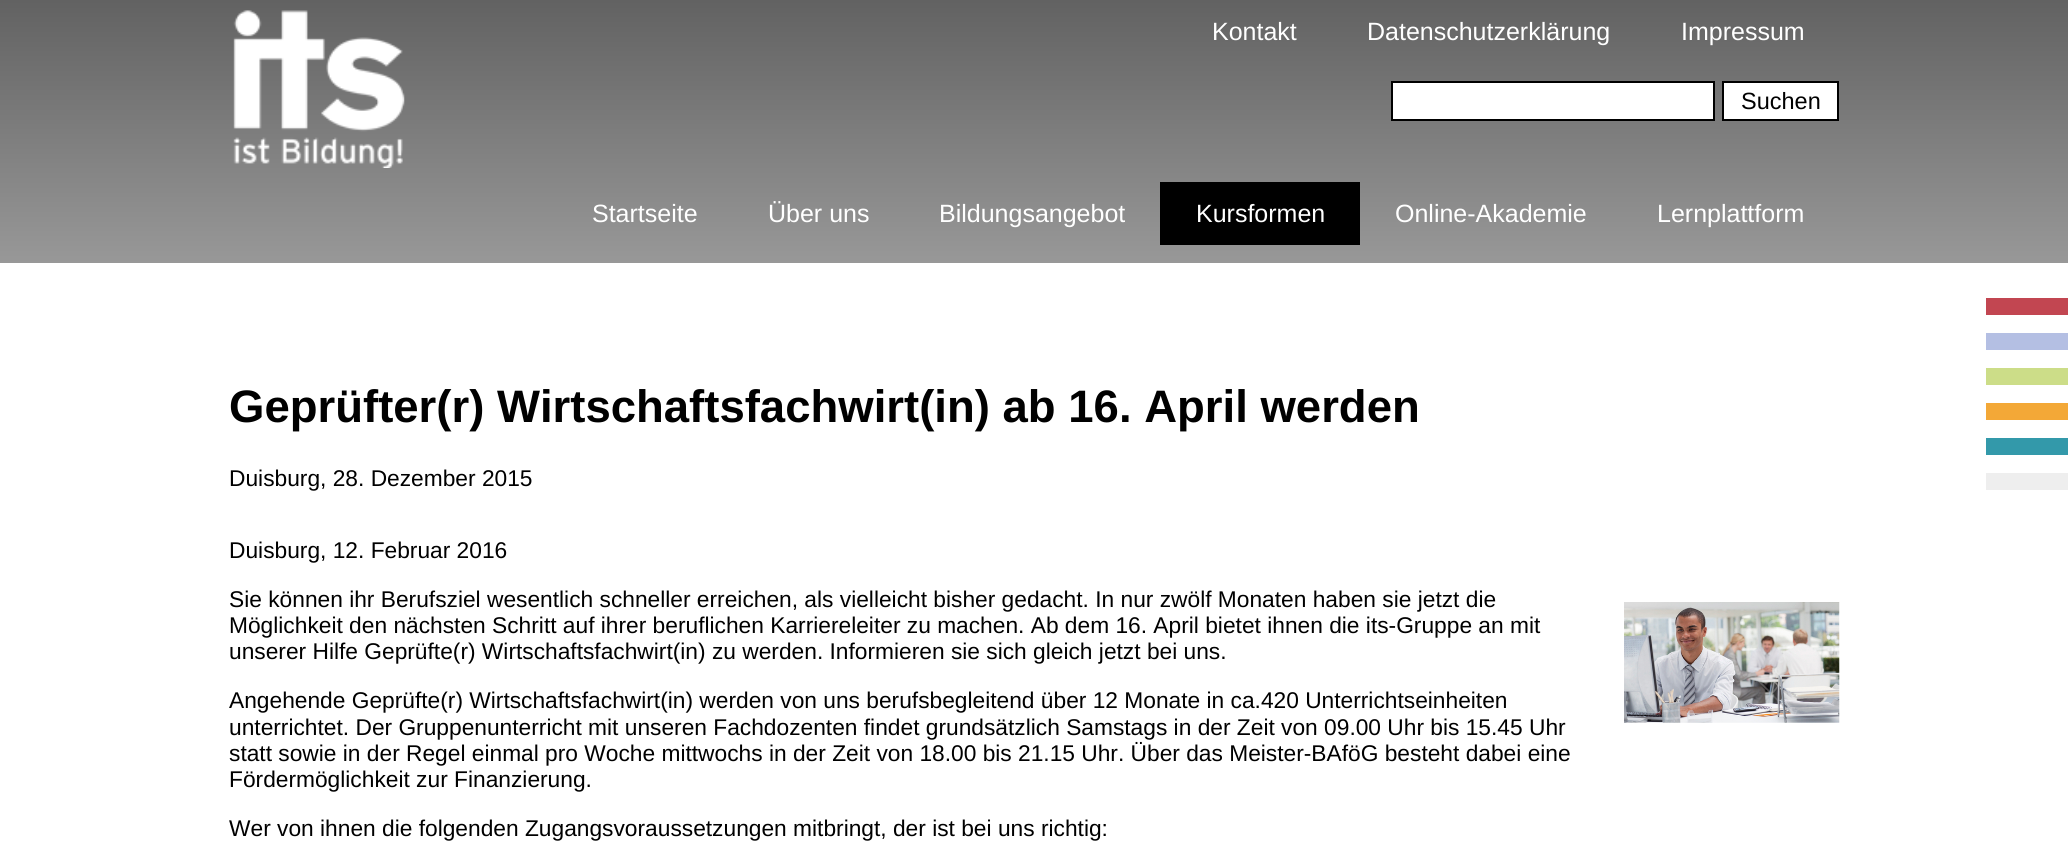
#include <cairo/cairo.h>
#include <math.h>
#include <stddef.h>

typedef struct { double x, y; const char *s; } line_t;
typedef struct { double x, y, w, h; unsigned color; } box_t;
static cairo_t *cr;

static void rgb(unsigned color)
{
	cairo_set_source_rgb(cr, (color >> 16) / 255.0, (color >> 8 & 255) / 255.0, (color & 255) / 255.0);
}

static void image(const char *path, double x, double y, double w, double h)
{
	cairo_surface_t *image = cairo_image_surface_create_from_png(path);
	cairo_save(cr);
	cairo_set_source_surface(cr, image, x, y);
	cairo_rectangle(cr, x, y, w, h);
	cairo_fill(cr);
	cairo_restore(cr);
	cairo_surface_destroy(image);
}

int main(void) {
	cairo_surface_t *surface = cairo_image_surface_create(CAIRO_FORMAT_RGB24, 2068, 854);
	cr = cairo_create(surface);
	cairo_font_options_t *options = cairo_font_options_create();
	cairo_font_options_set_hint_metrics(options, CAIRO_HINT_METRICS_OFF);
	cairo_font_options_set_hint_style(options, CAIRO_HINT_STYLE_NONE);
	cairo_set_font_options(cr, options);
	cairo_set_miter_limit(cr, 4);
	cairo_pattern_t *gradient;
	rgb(0xffffff);
	cairo_paint(cr);
	gradient = cairo_pattern_create_linear(1034, 0, 1034, 263);
	cairo_pattern_add_color_stop_rgba(gradient, 0, 0.384, 0.384, 0.384, 1);
	cairo_pattern_add_color_stop_rgba(gradient, 1, 0.596, 0.596, 0.596, 1);
	cairo_set_source(cr, gradient);
	cairo_pattern_destroy(gradient);
	cairo_rectangle(cr, 0, 0, 2068, 263);
	cairo_fill(cr);
	image("img/1.png", 233, 10, 172, 158);
	rgb(0xffffff);
	cairo_rectangle(cr, 1392, 82, 322, 38);
	cairo_fill_preserve(cr);
	rgb(0x000000);
	cairo_stroke(cr);
	rgb(0xffffff);
	cairo_rectangle(cr, 1723, 82, 115, 38);
	cairo_fill_preserve(cr);
	rgb(0x000000);
	cairo_stroke(cr);
	cairo_rectangle(cr, 1160, 182, 200, 63);
	cairo_fill(cr);
	image("img/2.png", 1624, 602, 216, 121);
	{
		static const box_t items[] = {
			{1986, 298, 82, 17, 0xc24651},
			{1986, 333, 82, 17, 0xb4bfe3},
			{1986, 368, 82, 17, 0xccdd88},
			{1986, 403, 82, 17, 0xf3a837},
			{1986, 438, 82, 17, 0x3399aa},
			{1986, 473, 82, 17, 0xeeeeee},
		};
		for (size_t i = 0; i < sizeof items / sizeof *items; i++) {
			rgb(items[i].color);
			cairo_rectangle(cr, items[i].x, items[i].y, items[i].w, items[i].h);
			cairo_fill(cr);
		}
	}
	cairo_select_font_face(cr, "Liberation Sans", CAIRO_FONT_SLANT_NORMAL, CAIRO_FONT_WEIGHT_NORMAL);
	cairo_set_font_size(cr, 25);
	rgb(0xffffff);
	{
		static const line_t items[] = {
			{1212, 40, "Kontakt"},
			{1367, 40, "Datenschutzerklärung"},
			{1681, 40, "Impressum"},
		};
		for (size_t i = 0; i < sizeof items / sizeof *items; i++) {
			cairo_move_to(cr, items[i].x, items[i].y);
			cairo_show_text(cr, items[i].s);
		}
	}
	cairo_set_font_size(cr, 23.5);
	rgb(0x000000);
	cairo_move_to(cr, 1741, 109);
	cairo_show_text(cr, "Suchen");
	cairo_set_font_size(cr, 25);
	rgb(0xffffff);
	{
		static const line_t items[] = {
			{592, 222, "Startseite"},
			{768, 222, "Über uns"},
			{939, 222, "Bildungsangebot"},
			{1196, 222, "Kursformen"},
			{1395, 222, "Online-Akademie"},
			{1657, 222, "Lernplattform"},
		};
		for (size_t i = 0; i < sizeof items / sizeof *items; i++) {
			cairo_move_to(cr, items[i].x, items[i].y);
			cairo_show_text(cr, items[i].s);
		}
	}
	cairo_select_font_face(cr, "Liberation Sans", CAIRO_FONT_SLANT_NORMAL, CAIRO_FONT_WEIGHT_BOLD);
	cairo_set_font_size(cr, 45.5);
	rgb(0x000000);
	cairo_move_to(cr, 229, 422);
	cairo_show_text(cr, "Geprüfter(r) Wirtschaftsfachwirt(in) ab 16. April werden");
	cairo_select_font_face(cr, "Liberation Sans", CAIRO_FONT_SLANT_NORMAL, CAIRO_FONT_WEIGHT_NORMAL);
	cairo_set_font_size(cr, 22.75);
	{
		static const line_t items[] = {
			{229, 486, "Duisburg, 28. Dezember 2015"},
			{229, 558, "Duisburg, 12. Februar 2016"},
			{229, 607, "Sie können ihr Berufsziel wesentlich schneller erreichen, als vielleicht bisher gedacht. In nur zwölf Monaten haben sie jetzt die"},
			{229, 633, "Möglichkeit den nächsten Schritt auf ihrer beruflichen Karriereleiter zu machen. Ab dem 16. April bietet ihnen die its-Gruppe an mit"},
			{229, 659, "unserer Hilfe Geprüfte(r) Wirtschaftsfachwirt(in) zu werden. Informieren sie sich gleich jetzt bei uns."},
			{229, 708, "Angehende Geprüfte(r) Wirtschaftsfachwirt(in) werden von uns berufsbegleitend über 12 Monate in ca.420 Unterrichtseinheiten"},
			{229, 735, "unterrichtet. Der Gruppenunterricht mit unseren Fachdozenten findet grundsätzlich Samstags in der Zeit von 09.00 Uhr bis 15.45 Uhr"},
			{229, 761, "statt sowie in der Regel einmal pro Woche mittwochs in der Zeit von 18.00 bis 21.15 Uhr. Über das Meister-BAföG besteht dabei eine"},
			{229, 787, "Fördermöglichkeit zur Finanzierung."},
			{229, 836, "Wer von ihnen die folgenden Zugangsvoraussetzungen mitbringt, der ist bei uns richtig:"},
		};
		for (size_t i = 0; i < sizeof items / sizeof *items; i++) {
			cairo_move_to(cr, items[i].x, items[i].y);
			cairo_show_text(cr, items[i].s);
		}
	}
	cairo_surface_write_to_png(surface, "page.png");
	cairo_font_options_destroy(options);
	cairo_destroy(cr);
	cairo_surface_destroy(surface);
	return 0;
}
